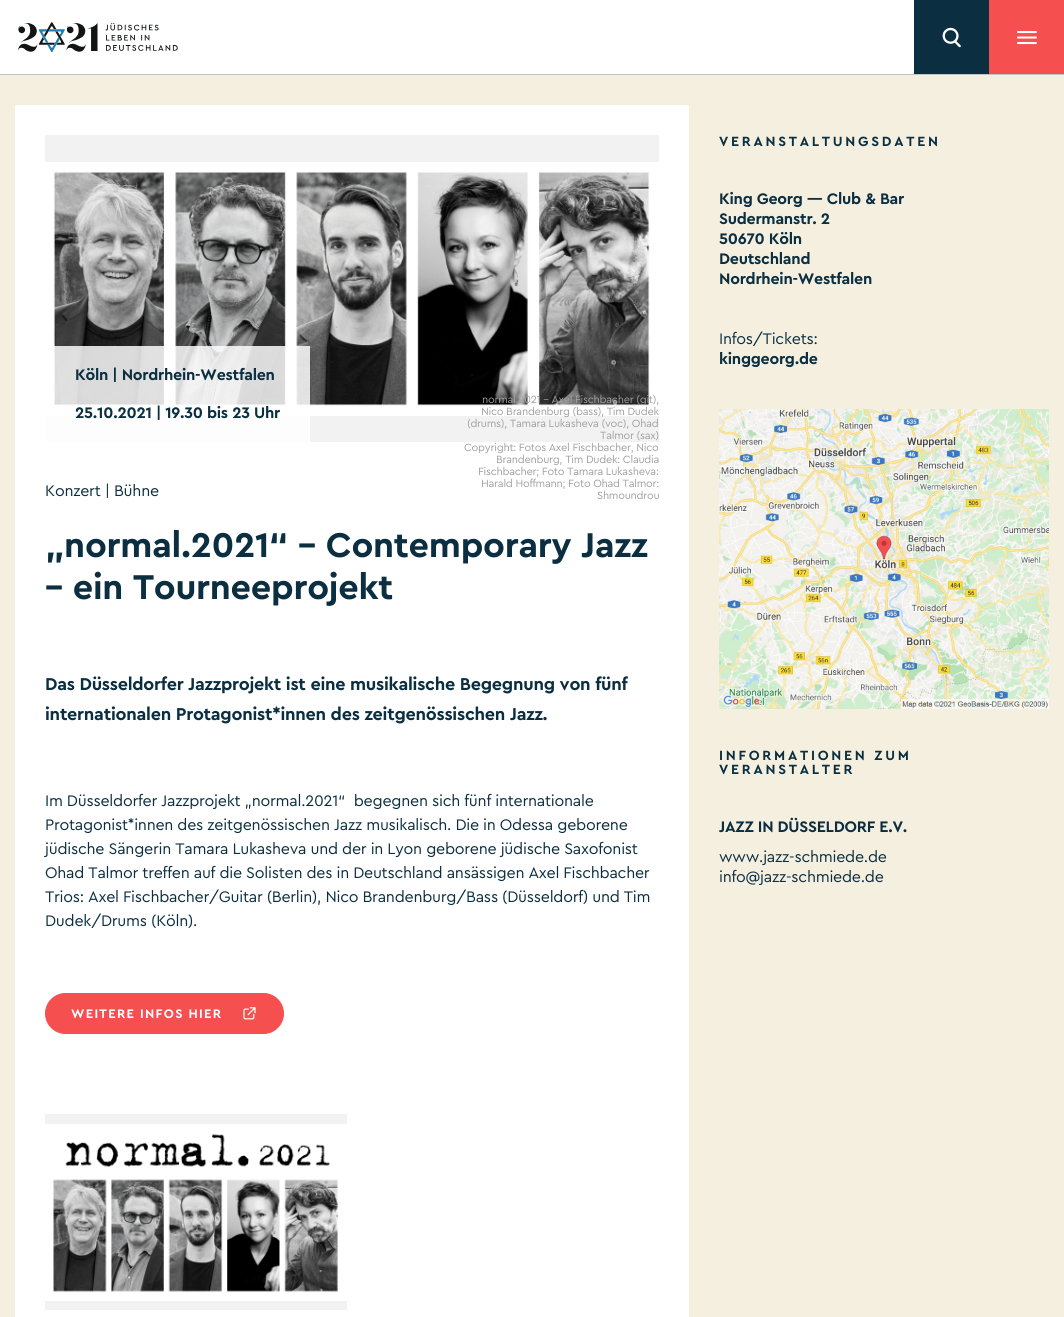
#include <cairo/cairo.h>
#include <math.h>
#include <stddef.h>

typedef struct { double x, y; const char *s; } line_t;
static cairo_t *cr;

static void rgb(unsigned color)
{
	cairo_set_source_rgb(cr, (color >> 16) / 255.0, (color >> 8 & 255) / 255.0, (color & 255) / 255.0);
}

static void tracked(double x, double y, const char *s, double letter, double word)
{
	cairo_move_to(cr, x, y);
	while (*s) {
		char ch[5] = {0};
		int n = 0;
		do ch[n++] = *s++; while ((*s & 0xC0) == 0x80);
		cairo_show_text(cr, ch);
		cairo_rel_move_to(cr, letter + word * (*ch == ' '), 0);
	}
}

static void rrect(double x, double y, double w, double h, double r)
{
	cairo_new_sub_path(cr);
	cairo_arc(cr, x + w - r, y + h - r, r, 0, M_PI / 2);
	cairo_arc(cr, x + r, y + h - r, r, M_PI / 2, M_PI);
	cairo_arc(cr, x + r, y + r, r, M_PI, 1.5 * M_PI);
	cairo_arc(cr, x + w - r, y + r, r, 1.5 * M_PI, 2 * M_PI);
	cairo_close_path(cr);
}

static void image(const char *path, double x, double y, double w, double h)
{
	cairo_surface_t *image = cairo_image_surface_create_from_png(path);
	cairo_save(cr);
	cairo_set_source_surface(cr, image, x, y);
	cairo_rectangle(cr, x, y, w, h);
	cairo_fill(cr);
	cairo_restore(cr);
	cairo_surface_destroy(image);
}

int main(void) {
	cairo_surface_t *surface = cairo_image_surface_create(CAIRO_FORMAT_RGB24, 1064, 1317);
	cr = cairo_create(surface);
	cairo_font_options_t *options = cairo_font_options_create();
	cairo_font_options_set_hint_metrics(options, CAIRO_HINT_METRICS_OFF);
	cairo_font_options_set_hint_style(options, CAIRO_HINT_STYLE_NONE);
	cairo_set_font_options(cr, options);
	cairo_set_miter_limit(cr, 4);
	rgb(0xf5efe0);
	cairo_paint(cr);
	rgb(0xffffff);
	cairo_rectangle(cr, 0, 0, 914, 74);
	cairo_fill(cr);
	rgb(0xc3c3c3);
	cairo_rectangle(cr, 0, 74, 1064, 1);
	cairo_fill(cr);
	image("img/1.png", 18, 22, 160, 30);
	rgb(0x0b2f41);
	cairo_rectangle(cr, 914, 0, 75, 74);
	cairo_fill(cr);
	image("img/2.png", 942, 27, 19, 21);
	rgb(0xf64f50);
	cairo_rectangle(cr, 989, 0, 75, 74);
	cairo_fill(cr);
	image("img/3.png", 1017, 31, 20, 14);
	rgb(0xffffff);
	cairo_rectangle(cr, 15, 105, 674, 1212);
	cairo_fill(cr);
	rgb(0xf2f2f2);
	cairo_rectangle(cr, 45, 135, 614, 307);
	cairo_fill(cr);
	image("img/4.png", 45, 162, 614, 254);
	cairo_set_source_rgba(cr, 1, 1, 1, 0.83);
	cairo_rectangle(cr, 45, 346, 265, 96);
	cairo_fill(cr);
	rgb(0xf64f50);
	rrect(45.5, 993.5, 238, 40, 20);
	cairo_fill_preserve(cr);
	cairo_set_line_width(cr, 1);
	cairo_stroke(cr);
	image("img/5.png", 243, 1007, 13, 13);
	rgb(0xf2f2f2);
	cairo_rectangle(cr, 45, 1114, 302, 196);
	cairo_fill(cr);
	image("img/6.png", 45, 1124, 302, 177);
	image("img/7.png", 719, 409, 330, 300);
	cairo_select_font_face(cr, "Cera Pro", CAIRO_FONT_SLANT_NORMAL, CAIRO_FONT_WEIGHT_BOLD);
	cairo_set_font_size(cr, 16);
	rgb(0x0b2f41);
	tracked(75, 380, "Köln | Nordrhein-Westfalen", -0.25, 0);
	tracked(75, 418, "25.10.2021 | 19.30 bis 23 Uhr", -0.25, 0);
	cairo_select_font_face(cr, "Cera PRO", CAIRO_FONT_SLANT_NORMAL, CAIRO_FONT_WEIGHT_NORMAL);
	cairo_set_font_size(cr, 11);
	rgb(0xa0a0a0);
	{
		static const line_t items[] = {
			{482, 403, "normal.2021 – Axel Fischbacher (git),"},
			{481, 415, "Nico Brandenburg (bass), Tim Dudek"},
			{467, 427, "(drums), Tamara Lukasheva (voc), Ohad"},
			{600, 439, "Talmor (sax)"},
			{464, 451, "Copyright: Fotos Axel Fischbacher, Nico"},
			{496, 463, "Brandenburg, Tim Dudek: Claudia"},
			{478, 475, "Fischbacher; Foto Tamara Lukasheva:"},
			{481, 487, "Harald Hoffmann; Foto Ohad Talmor:"},
			{597, 499, "Shmoundrou"},
		};
		for (size_t i = 0; i < sizeof items / sizeof *items; i++) {
			tracked(items[i].x, items[i].y, items[i].s, -0.25, 0);
		}
	}
	cairo_set_font_size(cr, 16);
	rgb(0x0b2f41);
	tracked(45, 496, "Konzert | Bühne", -0.25, 0);
	cairo_select_font_face(cr, "Cera Pro", CAIRO_FONT_SLANT_NORMAL, CAIRO_FONT_WEIGHT_BOLD);
	cairo_set_font_size(cr, 36);
	tracked(45, 557, "„normal.2021“ – Contemporary Jazz", -0.25, 0);
	tracked(45, 599, "– ein Tourneeprojekt", -0.25, 0);
	cairo_set_font_size(cr, 18);
	tracked(45, 690, "Das Düsseldorfer Jazzprojekt ist eine musikalische Begegnung von fünf", -0.25, 0);
	tracked(45, 720, "internationalen Protagonist*innen des zeitgenössischen Jazz.", -0.25, 0);
	cairo_select_font_face(cr, "Cera PRO", CAIRO_FONT_SLANT_NORMAL, CAIRO_FONT_WEIGHT_NORMAL);
	cairo_set_font_size(cr, 16);
	{
		static const line_t items[] = {
			{45, 806, "Im Düsseldorfer Jazzprojekt „normal.2021“  begegnen sich fünf internationale"},
			{45, 830, "Protagonist*innen des zeitgenössischen Jazz musikalisch. Die in Odessa geborene"},
			{45, 854, "jüdische Sängerin Tamara Lukasheva und der in Lyon geborene jüdische Saxofonist"},
			{45, 878, "Ohad Talmor treffen auf die Solisten des in Deutschland ansässigen Axel Fischbacher"},
			{45, 902, "Trios: Axel Fischbacher/Guitar (Berlin), Nico Brandenburg/Bass (Düsseldorf) und Tim"},
			{45, 926, "Dudek/Drums (Köln)."},
		};
		for (size_t i = 0; i < sizeof items / sizeof *items; i++) {
			tracked(items[i].x, items[i].y, items[i].s, -0.25, 0);
		}
	}
	cairo_select_font_face(cr, "Cera Pro", CAIRO_FONT_SLANT_NORMAL, CAIRO_FONT_WEIGHT_BOLD);
	cairo_set_font_size(cr, 13);
	rgb(0xffffff);
	tracked(71, 1018, "WEITERE INFOS HIER", 1.25, 0);
	cairo_set_font_size(cr, 14);
	rgb(0x0b2f41);
	tracked(719, 146, "VERANSTALTUNGSDATEN", 2.75, 0);
	cairo_set_font_size(cr, 16);
	{
		static const line_t items[] = {
			{719, 204, "King Georg — Club & Bar"},
			{719, 224, "Sudermanstr. 2"},
			{719, 244, "50670 Köln"},
			{719, 264, "Deutschland"},
			{719, 284, "Nordrhein-Westfalen"},
		};
		for (size_t i = 0; i < sizeof items / sizeof *items; i++) {
			tracked(items[i].x, items[i].y, items[i].s, -0.25, 0);
		}
	}
	cairo_select_font_face(cr, "Cera PRO", CAIRO_FONT_SLANT_NORMAL, CAIRO_FONT_WEIGHT_NORMAL);
	tracked(719, 344, "Infos/Tickets:", -0.25, 0);
	cairo_select_font_face(cr, "Cera Pro", CAIRO_FONT_SLANT_NORMAL, CAIRO_FONT_WEIGHT_BOLD);
	tracked(719, 364, "kinggeorg.de", -0.25, 0);
	cairo_set_font_size(cr, 14);
	tracked(719, 760, "INFORMATIONEN ZUM", 2.75, 0);
	tracked(719, 774, "VERANSTALTER", 2.75, 0);
	cairo_set_font_size(cr, 16);
	tracked(719, 832, "JAZZ IN DÜSSELDORF E.V.", -0.25, 0);
	cairo_select_font_face(cr, "Cera PRO", CAIRO_FONT_SLANT_NORMAL, CAIRO_FONT_WEIGHT_NORMAL);
	tracked(719, 862, "www.jazz-schmiede.de", -0.25, 0);
	tracked(719, 882, "info@jazz-schmiede.de", -0.25, 0);
	cairo_surface_write_to_png(surface, "page.png");
	cairo_font_options_destroy(options);
	cairo_destroy(cr);
	cairo_surface_destroy(surface);
	return 0;
}
